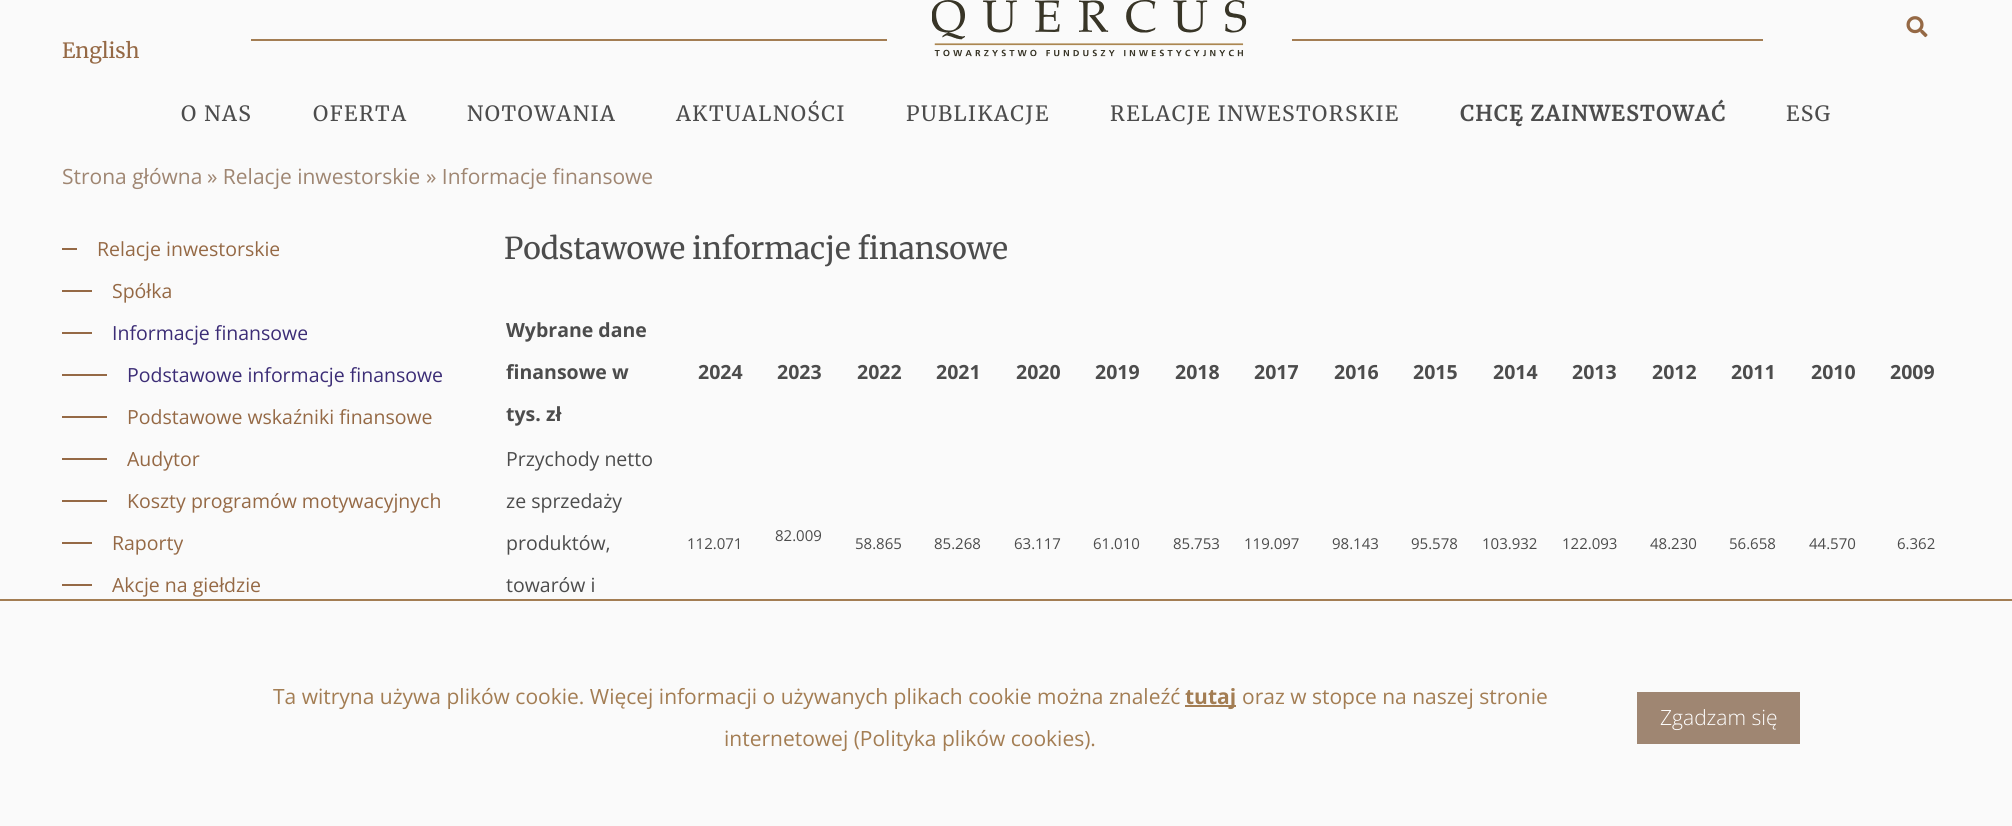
#include <cairo/cairo.h>
#include <math.h>
#include <stddef.h>

typedef struct { double x, y; const char *s; } line_t;
typedef struct { double x, y, w, h; unsigned color; } box_t;
static cairo_t *cr;

static void rgb(unsigned color)
{
	cairo_set_source_rgb(cr, (color >> 16) / 255.0, (color >> 8 & 255) / 255.0, (color & 255) / 255.0);
}

static void tracked(double x, double y, const char *s, double letter, double word)
{
	cairo_move_to(cr, x, y);
	while (*s) {
		char ch[5] = {0};
		int n = 0;
		do ch[n++] = *s++; while ((*s & 0xC0) == 0x80);
		cairo_show_text(cr, ch);
		cairo_rel_move_to(cr, letter + word * (*ch == ' '), 0);
	}
}

static void image(const char *path, double x, double y, double w, double h)
{
	cairo_surface_t *image = cairo_image_surface_create_from_png(path);
	cairo_save(cr);
	cairo_set_source_surface(cr, image, x, y);
	cairo_rectangle(cr, x, y, w, h);
	cairo_fill(cr);
	cairo_restore(cr);
	cairo_surface_destroy(image);
}

int main(void) {
	cairo_surface_t *surface = cairo_image_surface_create(CAIRO_FORMAT_RGB24, 2012, 826);
	cr = cairo_create(surface);
	cairo_font_options_t *options = cairo_font_options_create();
	cairo_font_options_set_hint_metrics(options, CAIRO_HINT_METRICS_OFF);
	cairo_font_options_set_hint_style(options, CAIRO_HINT_STYLE_NONE);
	cairo_set_font_options(cr, options);
	cairo_set_miter_limit(cr, 4);
	rgb(0xfafafa);
	cairo_paint(cr);
	rgb(0xa37d53);
	cairo_rectangle(cr, 251, 39, 1512, 2);
	cairo_fill(cr);
	rgb(0xfafafa);
	cairo_rectangle(cr, 887, 39, 405, 2);
	cairo_fill(cr);
	image("img/1.png", 932, 0, 315, 57);
	image("img/2.png", 1906, 16, 22, 22);
	{
		static const box_t items[] = {
			{62, 248, 15, 2, 0x956945},
			{62, 290, 30, 2, 0x956945},
			{62, 332, 30, 2, 0x956945},
			{62, 374, 45, 2, 0x956945},
			{62, 416, 45, 2, 0x956945},
			{62, 458, 45, 2, 0x956945},
			{62, 500, 45, 2, 0x956945},
			{62, 542, 30, 2, 0x956945},
			{62, 584, 30, 2, 0x956945},
			{0, 599, 2012, 2, 0xa37d53},
			{1185, 705, 51, 2, 0xa37d53},
			{1637, 692, 163, 52, 0x9f8672},
		};
		for (size_t i = 0; i < sizeof items / sizeof *items; i++) {
			rgb(items[i].color);
			cairo_rectangle(cr, items[i].x, items[i].y, items[i].w, items[i].h);
			cairo_fill(cr);
		}
	}
	cairo_select_font_face(cr, "Merriweather", CAIRO_FONT_SLANT_NORMAL, CAIRO_FONT_WEIGHT_NORMAL);
	cairo_set_font_size(cr, 21);
	rgb(0x956945);
	cairo_move_to(cr, 62, 58);
	cairo_show_text(cr, "English");
	rgb(0x4c4c4c);
	{
		static const line_t items[] = {
			{181, 121, "O NAS"},
			{313, 121, "OFERTA"},
			{467, 121, "NOTOWANIA"},
			{676, 121, "AKTUALNOŚCI"},
			{906, 121, "PUBLIKACJE"},
			{1110, 121, "RELACJE INWESTORSKIE"},
		};
		for (size_t i = 0; i < sizeof items / sizeof *items; i++) {
			tracked(items[i].x, items[i].y, items[i].s, 1.5, 0);
		}
	}
	cairo_select_font_face(cr, "Merriweather", CAIRO_FONT_SLANT_NORMAL, CAIRO_FONT_WEIGHT_BOLD);
	tracked(1460, 121, "CHCĘ ZAINWESTOWAĆ", 1.5, 0);
	cairo_select_font_face(cr, "Merriweather", CAIRO_FONT_SLANT_NORMAL, CAIRO_FONT_WEIGHT_NORMAL);
	tracked(1786, 121, "ESG", 1.5, 0);
	cairo_select_font_face(cr, "Open Sans", CAIRO_FONT_SLANT_NORMAL, CAIRO_FONT_WEIGHT_NORMAL);
	rgb(0x9f8672);
	{
		static const line_t items[] = {
			{62, 184, "Strona główna"},
			{207, 184, "» Relacje inwestorskie"},
			{426, 184, "» Informacje finansowe"},
		};
		for (size_t i = 0; i < sizeof items / sizeof *items; i++) {
			cairo_move_to(cr, items[i].x, items[i].y);
			cairo_show_text(cr, items[i].s);
		}
	}
	cairo_set_font_size(cr, 19.5);
	rgb(0x956945);
	cairo_move_to(cr, 97, 256);
	cairo_show_text(cr, "Relacje inwestorskie");
	cairo_move_to(cr, 112, 298);
	cairo_show_text(cr, "Spółka");
	rgb(0x3c2d76);
	cairo_move_to(cr, 112, 340);
	cairo_show_text(cr, "Informacje finansowe");
	cairo_move_to(cr, 127, 382);
	cairo_show_text(cr, "Podstawowe informacje finansowe");
	rgb(0x956945);
	{
		static const line_t items[] = {
			{127, 424, "Podstawowe wskaźniki finansowe"},
			{127, 466, "Audytor"},
			{127, 508, "Koszty programów motywacyjnych"},
			{112, 550, "Raporty"},
			{112, 592, "Akcje na giełdzie"},
		};
		for (size_t i = 0; i < sizeof items / sizeof *items; i++) {
			cairo_move_to(cr, items[i].x, items[i].y);
			cairo_show_text(cr, items[i].s);
		}
	}
	cairo_select_font_face(cr, "Merriweather", CAIRO_FONT_SLANT_NORMAL, CAIRO_FONT_WEIGHT_NORMAL);
	cairo_set_font_size(cr, 30);
	rgb(0x4c4c4c);
	cairo_move_to(cr, 504, 259);
	cairo_show_text(cr, "Podstawowe informacje finansowe");
	cairo_select_font_face(cr, "Open Sans", CAIRO_FONT_SLANT_NORMAL, CAIRO_FONT_WEIGHT_BOLD);
	cairo_set_font_size(cr, 19.5);
	{
		static const line_t items[] = {
			{506, 337, "Wybrane dane"},
			{506, 379, "finansowe w"},
			{506, 421, "tys. zł"},
			{698, 379, "2024"},
			{777, 379, "2023"},
			{857, 379, "2022"},
			{936, 379, "2021"},
			{1016, 379, "2020"},
			{1095, 379, "2019"},
			{1175, 379, "2018"},
			{1254, 379, "2017"},
			{1334, 379, "2016"},
			{1413, 379, "2015"},
			{1493, 379, "2014"},
			{1572, 379, "2013"},
			{1652, 379, "2012"},
			{1731, 379, "2011"},
			{1811, 379, "2010"},
			{1890, 379, "2009"},
		};
		for (size_t i = 0; i < sizeof items / sizeof *items; i++) {
			cairo_move_to(cr, items[i].x, items[i].y);
			cairo_show_text(cr, items[i].s);
		}
	}
	cairo_select_font_face(cr, "Open Sans", CAIRO_FONT_SLANT_NORMAL, CAIRO_FONT_WEIGHT_NORMAL);
	{
		static const line_t items[] = {
			{506, 466, "Przychody netto"},
			{506, 508, "ze sprzedaży"},
			{506, 550, "produktów,"},
			{506, 592, "towarów i"},
		};
		for (size_t i = 0; i < sizeof items / sizeof *items; i++) {
			cairo_move_to(cr, items[i].x, items[i].y);
			cairo_show_text(cr, items[i].s);
		}
	}
	cairo_set_font_size(cr, 15);
	{
		static const line_t items[] = {
			{775, 541, "82.009"},
			{687, 549, "112.071"},
			{855, 549, "58.865"},
			{934, 549, "85.268"},
			{1014, 549, "63.117"},
			{1093, 549, "61.010"},
			{1173, 549, "85.753"},
			{1244, 549, "119.097"},
			{1332, 549, "98.143"},
			{1411, 549, "95.578"},
			{1482, 549, "103.932"},
			{1562, 549, "122.093"},
			{1650, 549, "48.230"},
			{1729, 549, "56.658"},
			{1809, 549, "44.570"},
			{1897, 549, "6.362"},
		};
		for (size_t i = 0; i < sizeof items / sizeof *items; i++) {
			cairo_move_to(cr, items[i].x, items[i].y);
			cairo_show_text(cr, items[i].s);
		}
	}
	cairo_set_font_size(cr, 21);
	rgb(0xa37d53);
	cairo_move_to(cr, 273, 704);
	cairo_show_text(cr, "Ta witryna używa plików cookie. Więcej informacji o używanych plikach cookie można znaleźć");
	cairo_select_font_face(cr, "Open Sans", CAIRO_FONT_SLANT_NORMAL, CAIRO_FONT_WEIGHT_BOLD);
	cairo_move_to(cr, 1185, 704);
	cairo_show_text(cr, "tutaj");
	cairo_select_font_face(cr, "Open Sans", CAIRO_FONT_SLANT_NORMAL, CAIRO_FONT_WEIGHT_NORMAL);
	cairo_move_to(cr, 1242, 704);
	cairo_show_text(cr, "oraz w stopce na naszej stronie");
	cairo_move_to(cr, 724, 746);
	cairo_show_text(cr, "internetowej (Polityka plików cookies).");
	cairo_select_font_face(cr, "Open Sans Light", CAIRO_FONT_SLANT_NORMAL, CAIRO_FONT_WEIGHT_NORMAL);
	rgb(0xffffff);
	cairo_move_to(cr, 1660, 725);
	cairo_show_text(cr, "Zgadzam się");
	cairo_surface_write_to_png(surface, "page.png");
	cairo_font_options_destroy(options);
	cairo_destroy(cr);
	cairo_surface_destroy(surface);
	return 0;
}
